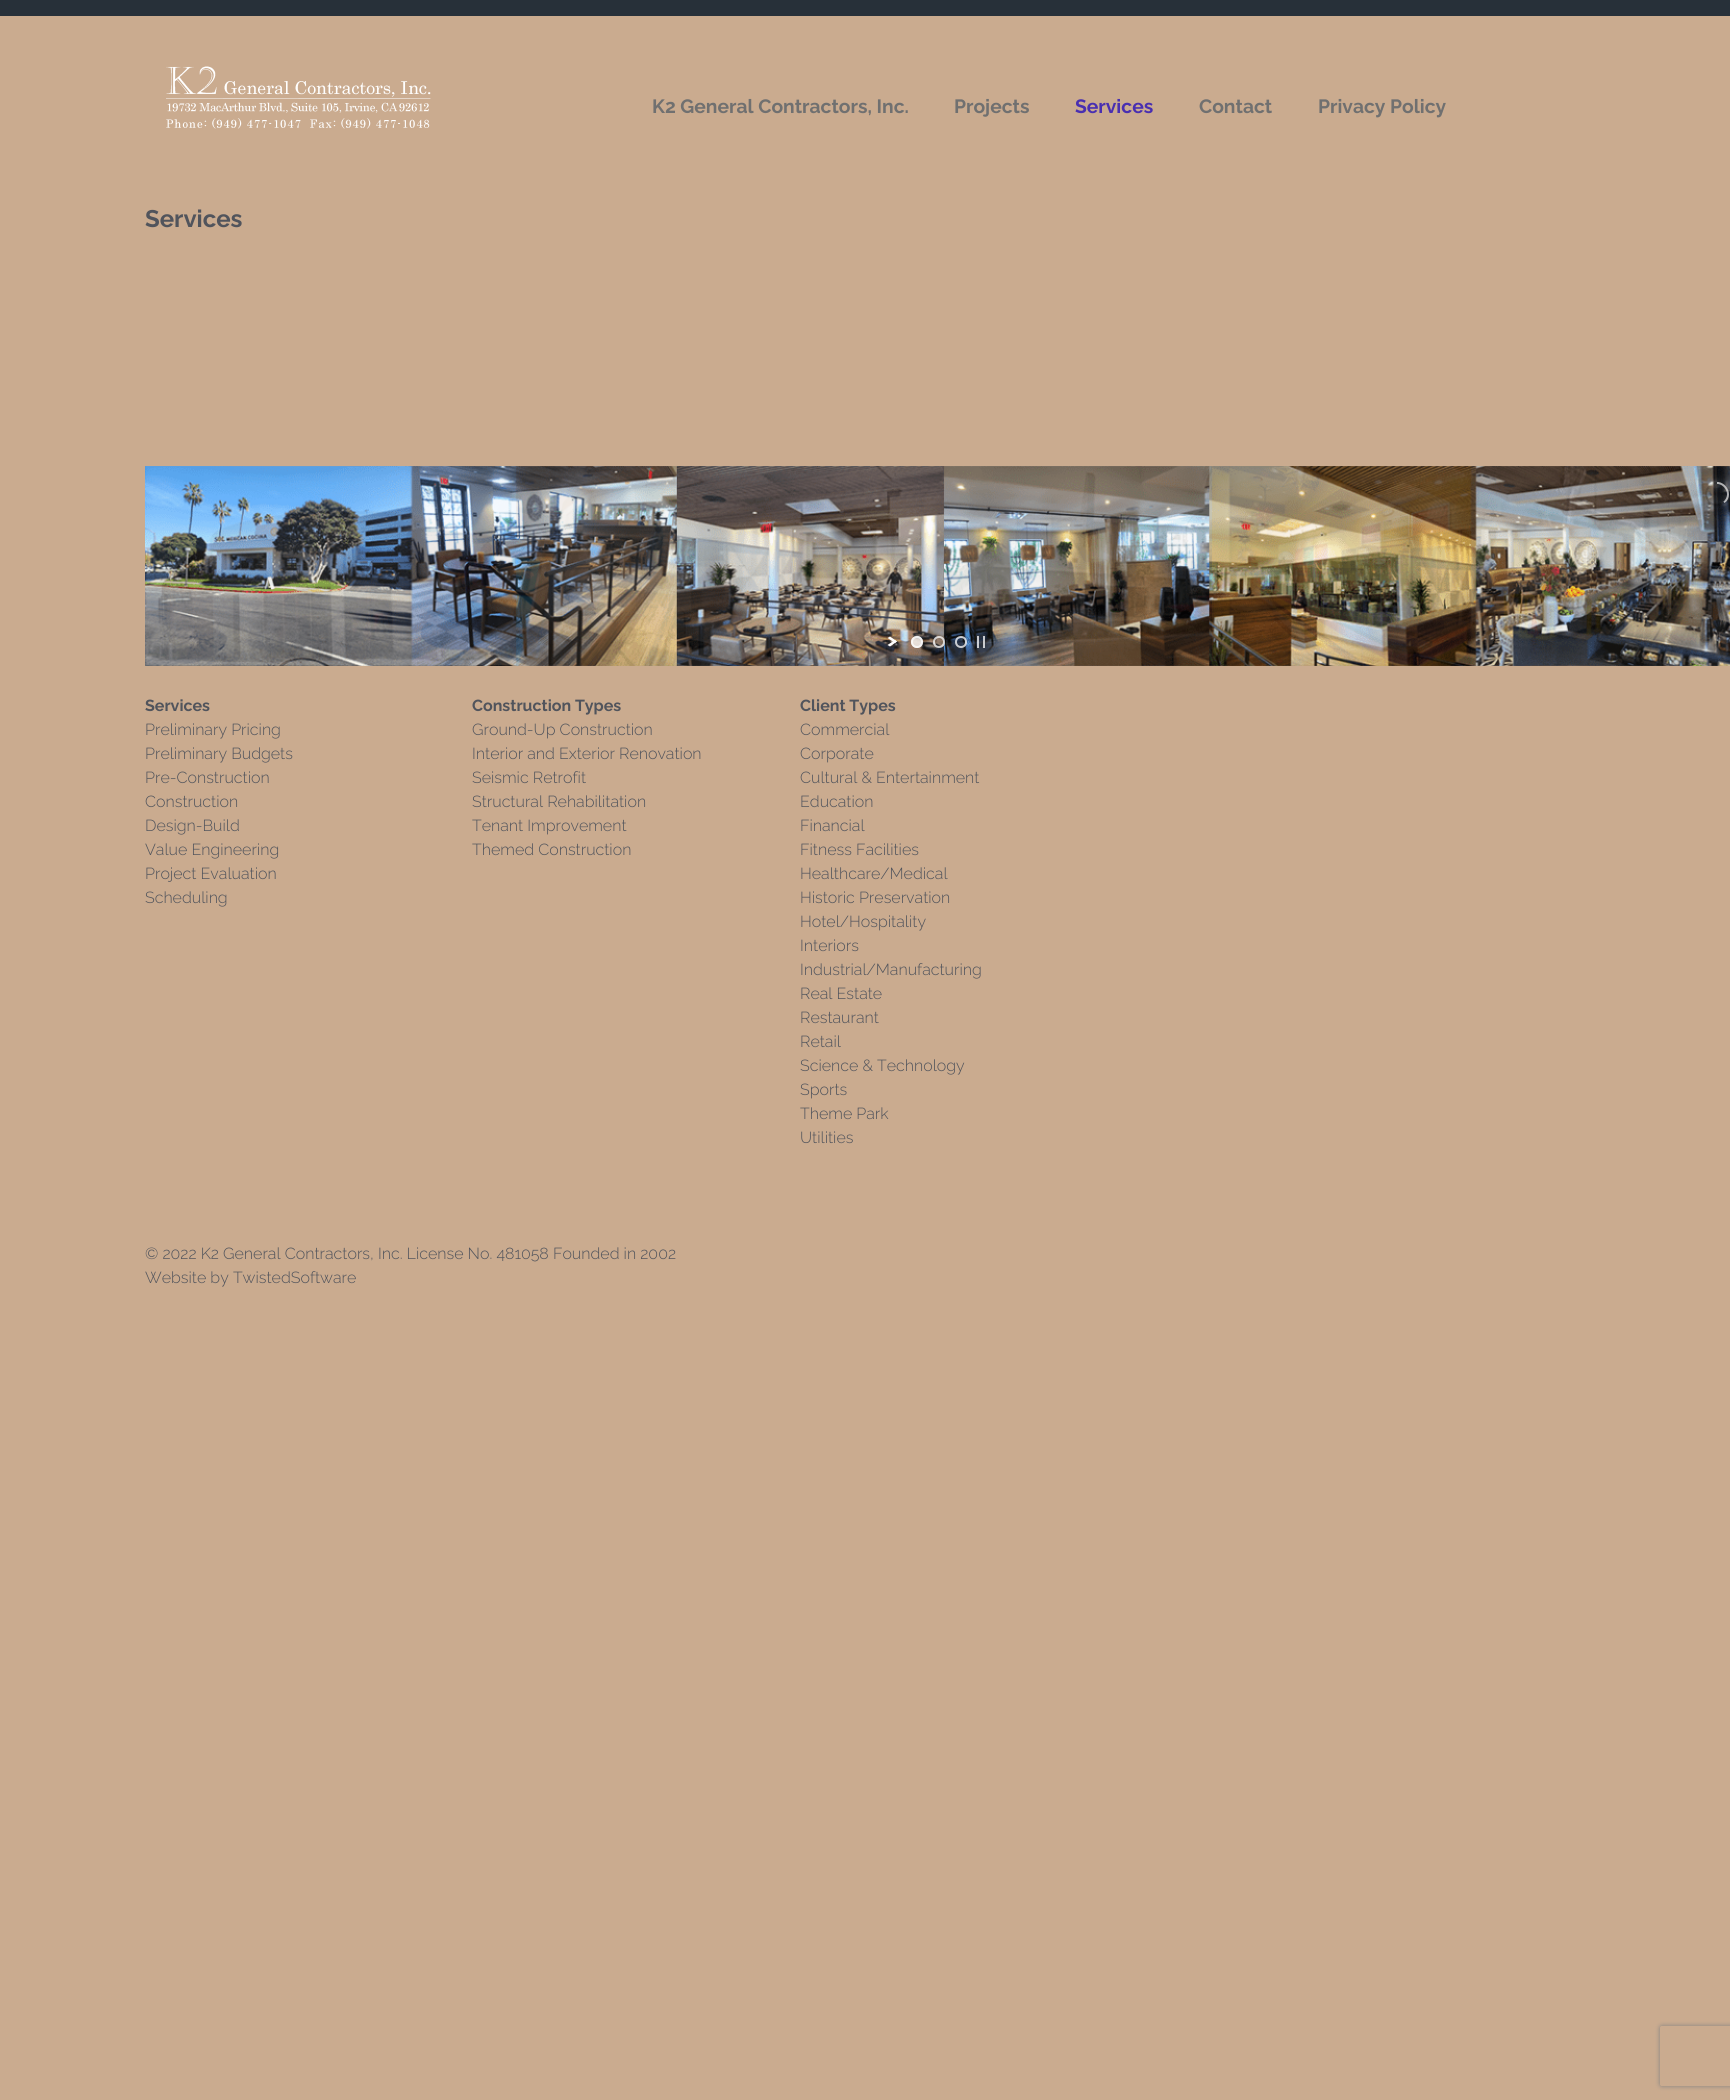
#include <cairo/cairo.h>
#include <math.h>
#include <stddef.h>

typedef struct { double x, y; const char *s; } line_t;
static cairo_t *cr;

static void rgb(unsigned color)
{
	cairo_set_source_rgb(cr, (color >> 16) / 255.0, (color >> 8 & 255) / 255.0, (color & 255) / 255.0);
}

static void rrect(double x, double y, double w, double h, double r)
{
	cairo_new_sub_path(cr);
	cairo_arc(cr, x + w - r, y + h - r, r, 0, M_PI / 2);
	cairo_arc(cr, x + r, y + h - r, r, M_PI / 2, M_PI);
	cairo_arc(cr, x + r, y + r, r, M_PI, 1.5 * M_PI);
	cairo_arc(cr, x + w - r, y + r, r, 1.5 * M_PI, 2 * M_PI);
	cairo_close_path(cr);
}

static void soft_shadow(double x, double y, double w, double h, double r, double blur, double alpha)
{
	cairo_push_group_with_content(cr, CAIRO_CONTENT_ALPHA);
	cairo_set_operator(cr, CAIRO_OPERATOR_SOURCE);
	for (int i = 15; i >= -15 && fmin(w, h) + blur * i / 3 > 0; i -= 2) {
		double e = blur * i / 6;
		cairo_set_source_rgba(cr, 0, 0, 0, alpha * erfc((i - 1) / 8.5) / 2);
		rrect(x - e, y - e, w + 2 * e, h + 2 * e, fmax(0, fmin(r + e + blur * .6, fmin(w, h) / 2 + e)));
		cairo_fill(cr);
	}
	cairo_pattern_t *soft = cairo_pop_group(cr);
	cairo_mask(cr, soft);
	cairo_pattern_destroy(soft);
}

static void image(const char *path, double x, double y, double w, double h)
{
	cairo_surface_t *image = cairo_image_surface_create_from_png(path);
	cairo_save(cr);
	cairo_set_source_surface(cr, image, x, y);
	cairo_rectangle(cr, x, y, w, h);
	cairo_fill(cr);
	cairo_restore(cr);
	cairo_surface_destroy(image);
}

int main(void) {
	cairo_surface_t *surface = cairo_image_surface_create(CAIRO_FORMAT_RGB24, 1730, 2100);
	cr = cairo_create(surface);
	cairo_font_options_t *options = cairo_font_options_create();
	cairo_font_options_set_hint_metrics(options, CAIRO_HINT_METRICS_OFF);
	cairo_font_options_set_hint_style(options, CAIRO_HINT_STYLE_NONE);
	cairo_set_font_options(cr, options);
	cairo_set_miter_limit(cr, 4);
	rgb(0xcaab8f);
	cairo_paint(cr);
	rgb(0x273039);
	cairo_rectangle(cr, 0, 0, 1730, 16);
	cairo_fill(cr);
	image("img/1.png", 166, 66, 265, 63);
	image("img/2.png", 145, 466, 1585, 200);
	image("img/3.png", 145, 466, 1585, 200);
	cairo_arc(cr, 1717, 494, 11, 0, 2 * M_PI);
	cairo_set_source_rgba(cr, 0, 0, 0, 0.13);
	cairo_stroke(cr);
	cairo_save(cr);
	cairo_rectangle(cr, 1717, 482, 12, 24);
	cairo_clip(cr);
	cairo_new_path(cr);
	cairo_move_to(cr, 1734, 495.5);
	cairo_line_to(cr, 1724.5, 503);
	cairo_line_to(cr, 1709.5, 485);
	cairo_line_to(cr, 1718.5, 477);
	cairo_close_path(cr);
	cairo_clip(cr);
	cairo_new_path(cr);
	cairo_move_to(cr, 1724, 502.5);
	cairo_curve_to(cr, 1713, 511.5, 1699, 495, 1710, 485.5);
	cairo_curve_to(cr, 1721, 476.5, 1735, 493, 1724, 502.5);
	cairo_close_path(cr);
	cairo_set_source_rgba(cr, 1, 1, 1, 0.65);
	cairo_stroke(cr);
	cairo_restore(cr);
	rgb(0xffffff);
	cairo_new_path(cr);
	cairo_move_to(cr, 890, 636.5);
	cairo_line_to(cr, 897, 641.5);
	cairo_line_to(cr, 895, 643);
	cairo_line_to(cr, 887.5, 638);
	cairo_close_path(cr);
	cairo_fill(cr);
	cairo_new_path(cr);
	cairo_move_to(cr, 895, 640);
	cairo_line_to(cr, 897, 641.5);
	cairo_line_to(cr, 890, 646.5);
	cairo_line_to(cr, 887.5, 645);
	cairo_close_path(cr);
	cairo_fill(cr);
	cairo_set_source_rgba(cr, 1, 1, 1, 0.75);
	cairo_arc(cr, 917, 642, 6, 0, 2 * M_PI);
	cairo_fill(cr);
	cairo_arc(cr, 917, 642, 5, 0, 2 * M_PI);
	cairo_stroke(cr);
	cairo_arc(cr, 939, 642, 5, 0, 2 * M_PI);
	cairo_stroke(cr);
	cairo_arc(cr, 961, 642, 5, 0, 2 * M_PI);
	cairo_stroke(cr);
	cairo_rectangle(cr, 983, 636, 2, 12);
	cairo_fill(cr);
	cairo_rectangle(cr, 977, 636, 2, 12);
	cairo_fill(cr);
	cairo_save(cr);
	cairo_set_fill_rule(cr, CAIRO_FILL_RULE_EVEN_ODD);
	cairo_new_path(cr);
	cairo_move_to(cr, 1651, 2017);
	cairo_line_to(cr, 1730, 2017);
	cairo_line_to(cr, 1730, 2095);
	cairo_line_to(cr, 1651, 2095);
	cairo_close_path(cr);
	cairo_move_to(cr, 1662, 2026);
	cairo_line_to(cr, 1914, 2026);
	cairo_curve_to(cr, 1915, 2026, 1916, 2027, 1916, 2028);
	cairo_line_to(cr, 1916, 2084);
	cairo_curve_to(cr, 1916, 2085, 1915, 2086, 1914, 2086);
	cairo_line_to(cr, 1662, 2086);
	cairo_curve_to(cr, 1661, 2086, 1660, 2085, 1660, 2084);
	cairo_line_to(cr, 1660, 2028);
	cairo_curve_to(cr, 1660, 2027, 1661, 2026, 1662, 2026);
	cairo_close_path(cr);
	cairo_clip(cr);
	rgb(0x808080);
	soft_shadow(1660, 2026, 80, 60, 2, 2.5, 1);
	cairo_restore(cr);
	cairo_select_font_face(cr, "Raleway", CAIRO_FONT_SLANT_NORMAL, CAIRO_FONT_WEIGHT_BOLD);
	cairo_set_font_size(cr, 19.25);
	rgb(0x707070);
	cairo_move_to(cr, 652, 113);
	cairo_show_text(cr, "K2 General Contractors, Inc.");
	cairo_move_to(cr, 954, 113);
	cairo_show_text(cr, "Projects");
	rgb(0x492fb1);
	cairo_move_to(cr, 1075, 113);
	cairo_show_text(cr, "Services");
	rgb(0x707070);
	cairo_move_to(cr, 1199, 113);
	cairo_show_text(cr, "Contact");
	cairo_move_to(cr, 1318, 113);
	cairo_show_text(cr, "Privacy Policy");
	cairo_set_font_size(cr, 24);
	rgb(0x51545c);
	cairo_move_to(cr, 145, 227);
	cairo_show_text(cr, "Services");
	cairo_set_font_size(cr, 16);
	cairo_move_to(cr, 145, 711);
	cairo_show_text(cr, "Services");
	cairo_select_font_face(cr, "Raleway Light", CAIRO_FONT_SLANT_NORMAL, CAIRO_FONT_WEIGHT_NORMAL);
	{
		static const line_t items[] = {
			{145, 735, "Preliminary Pricing"},
			{145, 759, "Preliminary Budgets"},
			{145, 783, "Pre-Construction"},
			{145, 807, "Construction"},
			{145, 831, "Design-Build"},
			{145, 855, "Value Engineering"},
			{145, 879, "Project Evaluation"},
			{145, 903, "Scheduling"},
		};
		for (size_t i = 0; i < sizeof items / sizeof *items; i++) {
			cairo_move_to(cr, items[i].x, items[i].y);
			cairo_show_text(cr, items[i].s);
		}
	}
	cairo_select_font_face(cr, "Raleway", CAIRO_FONT_SLANT_NORMAL, CAIRO_FONT_WEIGHT_BOLD);
	cairo_move_to(cr, 472, 711);
	cairo_show_text(cr, "Construction Types");
	cairo_select_font_face(cr, "Raleway Light", CAIRO_FONT_SLANT_NORMAL, CAIRO_FONT_WEIGHT_NORMAL);
	{
		static const line_t items[] = {
			{472, 735, "Ground-Up Construction"},
			{472, 759, "Interior and Exterior Renovation"},
			{472, 783, "Seismic Retrofit"},
			{472, 807, "Structural Rehabilitation"},
			{472, 831, "Tenant Improvement"},
			{472, 855, "Themed Construction"},
		};
		for (size_t i = 0; i < sizeof items / sizeof *items; i++) {
			cairo_move_to(cr, items[i].x, items[i].y);
			cairo_show_text(cr, items[i].s);
		}
	}
	cairo_select_font_face(cr, "Raleway", CAIRO_FONT_SLANT_NORMAL, CAIRO_FONT_WEIGHT_BOLD);
	cairo_move_to(cr, 800, 711);
	cairo_show_text(cr, "Client Types");
	cairo_select_font_face(cr, "Raleway Light", CAIRO_FONT_SLANT_NORMAL, CAIRO_FONT_WEIGHT_NORMAL);
	{
		static const line_t items[] = {
			{800, 735, "Commercial"},
			{800, 759, "Corporate"},
			{800, 783, "Cultural & Entertainment"},
			{800, 807, "Education"},
			{800, 831, "Financial"},
			{800, 855, "Fitness Facilities"},
			{800, 879, "Healthcare/Medical"},
			{800, 903, "Historic Preservation"},
			{800, 927, "Hotel/Hospitality"},
			{800, 951, "Interiors"},
			{800, 975, "Industrial/Manufacturing"},
			{800, 999, "Real Estate"},
			{800, 1023, "Restaurant"},
			{800, 1047, "Retail"},
			{800, 1071, "Science & Technology"},
			{800, 1095, "Sports"},
			{800, 1119, "Theme Park"},
			{800, 1143, "Utilities"},
			{145, 1259, "© 2022 K2 General Contractors, Inc. License No. 481058 Founded in 2002"},
			{145, 1283, "Website by TwistedSoftware"},
		};
		for (size_t i = 0; i < sizeof items / sizeof *items; i++) {
			cairo_move_to(cr, items[i].x, items[i].y);
			cairo_show_text(cr, items[i].s);
		}
	}
	cairo_surface_write_to_png(surface, "page.png");
	cairo_font_options_destroy(options);
	cairo_destroy(cr);
	cairo_surface_destroy(surface);
	return 0;
}
